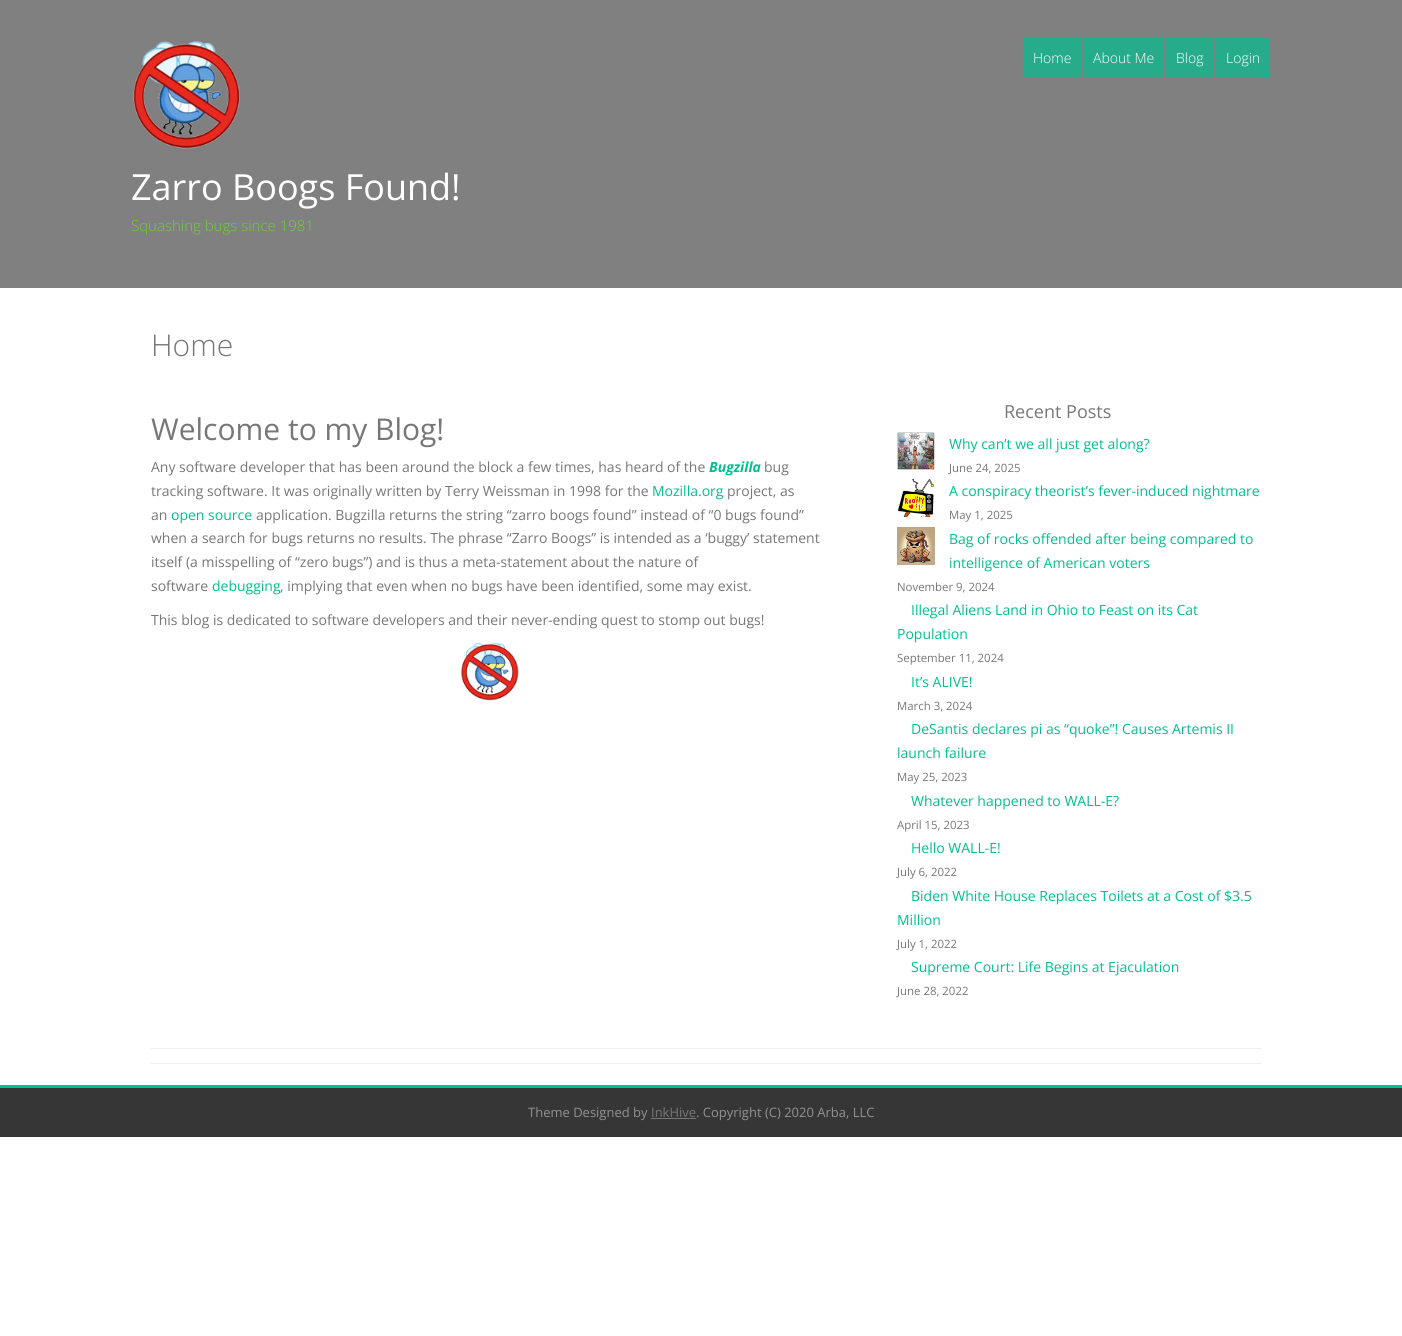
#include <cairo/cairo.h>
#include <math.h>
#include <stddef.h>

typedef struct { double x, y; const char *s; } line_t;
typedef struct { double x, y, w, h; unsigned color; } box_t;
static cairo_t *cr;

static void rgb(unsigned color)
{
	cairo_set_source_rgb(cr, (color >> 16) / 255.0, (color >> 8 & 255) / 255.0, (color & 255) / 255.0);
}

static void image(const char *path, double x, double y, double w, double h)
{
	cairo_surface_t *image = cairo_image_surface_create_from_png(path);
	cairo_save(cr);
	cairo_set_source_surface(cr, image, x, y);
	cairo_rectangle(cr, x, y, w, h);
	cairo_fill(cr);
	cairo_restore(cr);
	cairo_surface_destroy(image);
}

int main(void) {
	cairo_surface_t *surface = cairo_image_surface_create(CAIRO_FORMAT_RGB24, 1402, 1336);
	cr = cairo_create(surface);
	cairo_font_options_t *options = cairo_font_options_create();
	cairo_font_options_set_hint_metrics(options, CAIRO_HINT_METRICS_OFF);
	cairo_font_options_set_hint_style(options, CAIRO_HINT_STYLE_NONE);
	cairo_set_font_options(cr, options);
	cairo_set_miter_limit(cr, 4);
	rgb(0xffffff);
	cairo_paint(cr);
	{
		static const box_t items[] = {
			{0, 0, 1402, 288, 0x808080},
			{1023, 38, 58, 40, 0x26ac8b},
			{1083, 38, 81, 40, 0x26ac8b},
			{1166, 38, 48, 40, 0x26ac8b},
			{1216, 38, 54, 40, 0x26ac8b},
		};
		for (size_t i = 0; i < sizeof items / sizeof *items; i++) {
			rgb(items[i].color);
			cairo_rectangle(cr, items[i].x, items[i].y, items[i].w, items[i].h);
			cairo_fill(cr);
		}
	}
	image("img/1.png", 133, 41, 107, 108);
	image("img/2.png", 461, 642, 58, 59);
	image("img/3.png", 897, 432, 38, 38);
	image("img/4.png", 898, 479, 36, 38);
	image("img/5.png", 897, 527, 38, 38);
	{
		static const box_t items[] = {
			{151, 1048, 1110, 1, 0xeeeeee},
			{151, 1063, 1110, 1, 0xeeeeee},
			{0, 1088, 1402, 49, 0x363636},
			{0, 1085, 1402, 3, 0x00bf8f},
			{651, 1118, 45, 1, 0x777777},
		};
		for (size_t i = 0; i < sizeof items / sizeof *items; i++) {
			rgb(items[i].color);
			cairo_rectangle(cr, items[i].x, items[i].y, items[i].w, items[i].h);
			cairo_fill(cr);
		}
	}
	cairo_select_font_face(cr, "Open Sans Light", CAIRO_FONT_SLANT_NORMAL, CAIRO_FONT_WEIGHT_NORMAL);
	cairo_set_font_size(cr, 14);
	rgb(0xffffff);
	{
		static const line_t items[] = {
			{1033, 63, "Home"},
			{1093, 63, "About Me"},
			{1176, 63, "Blog"},
			{1226, 63, "Login"},
		};
		for (size_t i = 0; i < sizeof items / sizeof *items; i++) {
			cairo_move_to(cr, items[i].x, items[i].y);
			cairo_show_text(cr, items[i].s);
		}
	}
	cairo_select_font_face(cr, "Open Sans", CAIRO_FONT_SLANT_NORMAL, CAIRO_FONT_WEIGHT_NORMAL);
	cairo_set_font_size(cr, 36);
	cairo_move_to(cr, 131, 200);
	cairo_show_text(cr, "Zarro Boogs Found!");
	cairo_select_font_face(cr, "Open Sans Light", CAIRO_FONT_SLANT_NORMAL, CAIRO_FONT_WEIGHT_NORMAL);
	cairo_set_font_size(cr, 15);
	rgb(0x6bd233);
	cairo_move_to(cr, 131, 231);
	cairo_show_text(cr, "Squashing bugs since 1981");
	cairo_set_font_size(cr, 30);
	rgb(0x777777);
	cairo_move_to(cr, 151, 356);
	cairo_show_text(cr, "Home");
	cairo_select_font_face(cr, "Open Sans", CAIRO_FONT_SLANT_NORMAL, CAIRO_FONT_WEIGHT_NORMAL);
	cairo_move_to(cr, 151, 440);
	cairo_show_text(cr, "Welcome to my Blog!");
	cairo_set_font_size(cr, 14);
	cairo_move_to(cr, 151, 472);
	cairo_show_text(cr, "Any software developer that has been around the block a few times, has heard of the");
	cairo_select_font_face(cr, "Open Sans", CAIRO_FONT_SLANT_ITALIC, CAIRO_FONT_WEIGHT_BOLD);
	rgb(0x00bf8f);
	cairo_move_to(cr, 709, 472);
	cairo_show_text(cr, "Bugzilla");
	cairo_select_font_face(cr, "Open Sans", CAIRO_FONT_SLANT_NORMAL, CAIRO_FONT_WEIGHT_NORMAL);
	rgb(0x777777);
	cairo_move_to(cr, 764, 472);
	cairo_show_text(cr, "bug");
	cairo_move_to(cr, 151, 496);
	cairo_show_text(cr, "tracking software. It was originally written by Terry Weissman in 1998 for the");
	rgb(0x00bf8f);
	cairo_move_to(cr, 652, 496);
	cairo_show_text(cr, "Mozilla.org");
	rgb(0x777777);
	cairo_move_to(cr, 727, 496);
	cairo_show_text(cr, "project, as");
	cairo_move_to(cr, 151, 520);
	cairo_show_text(cr, "an");
	rgb(0x00bf8f);
	cairo_move_to(cr, 171, 520);
	cairo_show_text(cr, "open source");
	rgb(0x777777);
	{
		static const line_t items[] = {
			{256, 520, "application. Bugzilla returns the string “zarro boogs found” instead of “0 bugs found”"},
			{151, 543, "when a search for bugs returns no results. The phrase “Zarro Boogs” is intended as a ‘buggy’ statement"},
			{151, 567, "itself (a misspelling of “zero bugs”) and is thus a meta-statement about the nature of"},
			{151, 591, "software"},
		};
		for (size_t i = 0; i < sizeof items / sizeof *items; i++) {
			cairo_move_to(cr, items[i].x, items[i].y);
			cairo_show_text(cr, items[i].s);
		}
	}
	rgb(0x00bf8f);
	cairo_move_to(cr, 212, 591);
	cairo_show_text(cr, "debugging");
	rgb(0x777777);
	cairo_move_to(cr, 280, 591);
	cairo_show_text(cr, ", implying that even when no bugs have been identified, some may exist.");
	cairo_move_to(cr, 151, 625);
	cairo_show_text(cr, "This blog is dedicated to software developers and their never-ending quest to stomp out bugs!");
	cairo_set_font_size(cr, 18);
	cairo_move_to(cr, 1004, 418);
	cairo_show_text(cr, "Recent Posts");
	cairo_set_font_size(cr, 14);
	rgb(0x00bf8f);
	cairo_move_to(cr, 949, 449);
	cairo_show_text(cr, "Why can’t we all just get along?");
	cairo_set_font_size(cr, 11.4);
	rgb(0x777777);
	cairo_move_to(cr, 949, 472);
	cairo_show_text(cr, "June 24, 2025");
	cairo_set_font_size(cr, 14);
	rgb(0x00bf8f);
	cairo_move_to(cr, 949, 496);
	cairo_show_text(cr, "A conspiracy theorist’s fever-induced nightmare");
	cairo_set_font_size(cr, 11.4);
	rgb(0x777777);
	cairo_move_to(cr, 949, 519);
	cairo_show_text(cr, "May 1, 2025");
	cairo_set_font_size(cr, 14);
	rgb(0x00bf8f);
	cairo_move_to(cr, 949, 544);
	cairo_show_text(cr, "Bag of rocks offended after being compared to");
	cairo_move_to(cr, 949, 568);
	cairo_show_text(cr, "intelligence of American voters");
	cairo_set_font_size(cr, 11.4);
	rgb(0x777777);
	cairo_move_to(cr, 897, 591);
	cairo_show_text(cr, "November 9, 2024");
	cairo_set_font_size(cr, 14);
	rgb(0x00bf8f);
	cairo_move_to(cr, 911, 615);
	cairo_show_text(cr, "Illegal Aliens Land in Ohio to Feast on its Cat");
	cairo_move_to(cr, 897, 639);
	cairo_show_text(cr, "Population");
	cairo_set_font_size(cr, 11.4);
	rgb(0x777777);
	cairo_move_to(cr, 897, 662);
	cairo_show_text(cr, "September 11, 2024");
	cairo_set_font_size(cr, 14);
	rgb(0x00bf8f);
	cairo_move_to(cr, 911, 687);
	cairo_show_text(cr, "It’s ALIVE!");
	cairo_set_font_size(cr, 11.4);
	rgb(0x777777);
	cairo_move_to(cr, 897, 710);
	cairo_show_text(cr, "March 3, 2024");
	cairo_set_font_size(cr, 14);
	rgb(0x00bf8f);
	cairo_move_to(cr, 911, 734);
	cairo_show_text(cr, "DeSantis declares pi as “quoke”! Causes Artemis II");
	cairo_move_to(cr, 897, 758);
	cairo_show_text(cr, "launch failure");
	cairo_set_font_size(cr, 11.4);
	rgb(0x777777);
	cairo_move_to(cr, 897, 781);
	cairo_show_text(cr, "May 25, 2023");
	cairo_set_font_size(cr, 14);
	rgb(0x00bf8f);
	cairo_move_to(cr, 911, 806);
	cairo_show_text(cr, "Whatever happened to WALL-E?");
	cairo_set_font_size(cr, 11.4);
	rgb(0x777777);
	cairo_move_to(cr, 897, 829);
	cairo_show_text(cr, "April 15, 2023");
	cairo_set_font_size(cr, 14);
	rgb(0x00bf8f);
	cairo_move_to(cr, 911, 853);
	cairo_show_text(cr, "Hello WALL-E!");
	cairo_set_font_size(cr, 11.4);
	rgb(0x777777);
	cairo_move_to(cr, 897, 876);
	cairo_show_text(cr, "July 6, 2022");
	cairo_set_font_size(cr, 14);
	rgb(0x00bf8f);
	cairo_move_to(cr, 911, 901);
	cairo_show_text(cr, "Biden White House Replaces Toilets at a Cost of $3.5");
	cairo_move_to(cr, 897, 925);
	cairo_show_text(cr, "Million");
	cairo_set_font_size(cr, 11.4);
	rgb(0x777777);
	cairo_move_to(cr, 897, 948);
	cairo_show_text(cr, "July 1, 2022");
	cairo_set_font_size(cr, 14);
	rgb(0x00bf8f);
	cairo_move_to(cr, 911, 972);
	cairo_show_text(cr, "Supreme Court: Life Begins at Ejaculation");
	cairo_set_font_size(cr, 11.4);
	rgb(0x777777);
	cairo_move_to(cr, 897, 995);
	cairo_show_text(cr, "June 28, 2022");
	cairo_set_font_size(cr, 13);
	rgb(0x919191);
	cairo_move_to(cr, 528, 1117);
	cairo_show_text(cr, "Theme Designed by");
	rgb(0x777777);
	cairo_move_to(cr, 651, 1117);
	cairo_show_text(cr, "InkHive");
	rgb(0x919191);
	cairo_move_to(cr, 696, 1117);
	cairo_show_text(cr, ". Copyright (C) 2020 Arba, LLC");
	cairo_surface_write_to_png(surface, "page.png");
	cairo_font_options_destroy(options);
	cairo_destroy(cr);
	cairo_surface_destroy(surface);
	return 0;
}
